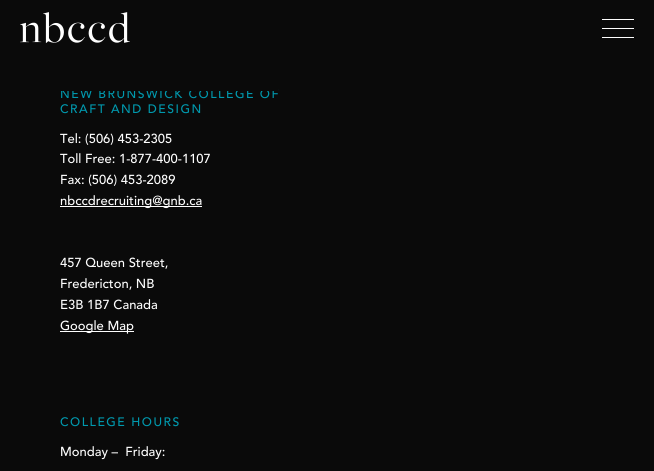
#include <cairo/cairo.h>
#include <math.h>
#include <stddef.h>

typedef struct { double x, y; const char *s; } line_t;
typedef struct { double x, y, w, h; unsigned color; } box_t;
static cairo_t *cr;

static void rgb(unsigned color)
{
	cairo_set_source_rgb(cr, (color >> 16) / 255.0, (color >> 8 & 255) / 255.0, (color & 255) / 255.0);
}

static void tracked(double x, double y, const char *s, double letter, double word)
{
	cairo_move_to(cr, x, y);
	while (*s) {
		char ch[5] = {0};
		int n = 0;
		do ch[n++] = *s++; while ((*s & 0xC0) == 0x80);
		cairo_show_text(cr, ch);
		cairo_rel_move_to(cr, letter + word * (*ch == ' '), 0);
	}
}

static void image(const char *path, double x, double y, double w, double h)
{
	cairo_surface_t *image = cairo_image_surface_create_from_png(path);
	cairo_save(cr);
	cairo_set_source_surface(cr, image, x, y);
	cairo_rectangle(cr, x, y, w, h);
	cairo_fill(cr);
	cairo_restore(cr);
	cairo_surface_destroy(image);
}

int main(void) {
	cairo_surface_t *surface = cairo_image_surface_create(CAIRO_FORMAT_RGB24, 654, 471);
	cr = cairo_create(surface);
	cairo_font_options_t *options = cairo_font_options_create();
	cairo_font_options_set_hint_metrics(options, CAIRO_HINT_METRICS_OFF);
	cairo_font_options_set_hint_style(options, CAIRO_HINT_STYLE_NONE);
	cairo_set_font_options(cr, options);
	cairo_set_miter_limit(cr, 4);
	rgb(0x0a0a0a);
	cairo_paint(cr);
	image("img/1.png", 20, 12, 110, 31);
	{
		static const box_t items[] = {
			{602, 37, 32, 1, 0xfefefe},
			{602, 19, 32, 1, 0xfefefe},
			{602, 28, 32, 1, 0xfefefe},
			{60, 206, 142, 1, 0xfefefe},
			{60, 331, 74, 1, 0xfefefe},
		};
		for (size_t i = 0; i < sizeof items / sizeof *items; i++) {
			rgb(items[i].color);
			cairo_rectangle(cr, items[i].x, items[i].y, items[i].w, items[i].h);
			cairo_fill(cr);
		}
	}
	cairo_select_font_face(cr, "Avenir Medium", CAIRO_FONT_SLANT_NORMAL, CAIRO_FONT_WEIGHT_NORMAL);
	cairo_set_font_size(cr, 12.2);
	rgb(0x0099ae);
	tracked(60, 98, "NEW BRUNSWICK COLLEGE OF", 1.5, 0);
	rgb(0x0a0a0a);
	cairo_rectangle(cr, 61, 89, 217, 2);
	cairo_fill(cr);
	rgb(0x0099ae);
	tracked(60, 113, "CRAFT AND DESIGN", 1.5, 0);
	cairo_set_font_size(cr, 13);
	rgb(0xfefefe);
	{
		static const line_t items[] = {
			{60, 143, "Tel: (506) 453-2305"},
			{60, 163, "Toll Free: 1-877-400-1107"},
			{60, 184, "Fax: (506) 453-2089"},
			{60, 205, "nbccdrecruiting@gnb.ca"},
			{60, 267, "457 Queen Street,"},
			{60, 288, "Fredericton, NB"},
			{60, 309, "E3B 1B7 Canada"},
			{60, 330, "Google Map"},
		};
		for (size_t i = 0; i < sizeof items / sizeof *items; i++) {
			cairo_move_to(cr, items[i].x, items[i].y);
			cairo_show_text(cr, items[i].s);
		}
	}
	cairo_set_font_size(cr, 12.2);
	rgb(0x0099ae);
	tracked(60, 426, "COLLEGE HOURS", 1.5, 0);
	cairo_set_font_size(cr, 13);
	rgb(0xfefefe);
	cairo_move_to(cr, 60, 456);
	cairo_show_text(cr, "Monday –  Friday:");
	cairo_surface_write_to_png(surface, "page.png");
	cairo_font_options_destroy(options);
	cairo_destroy(cr);
	cairo_surface_destroy(surface);
	return 0;
}
